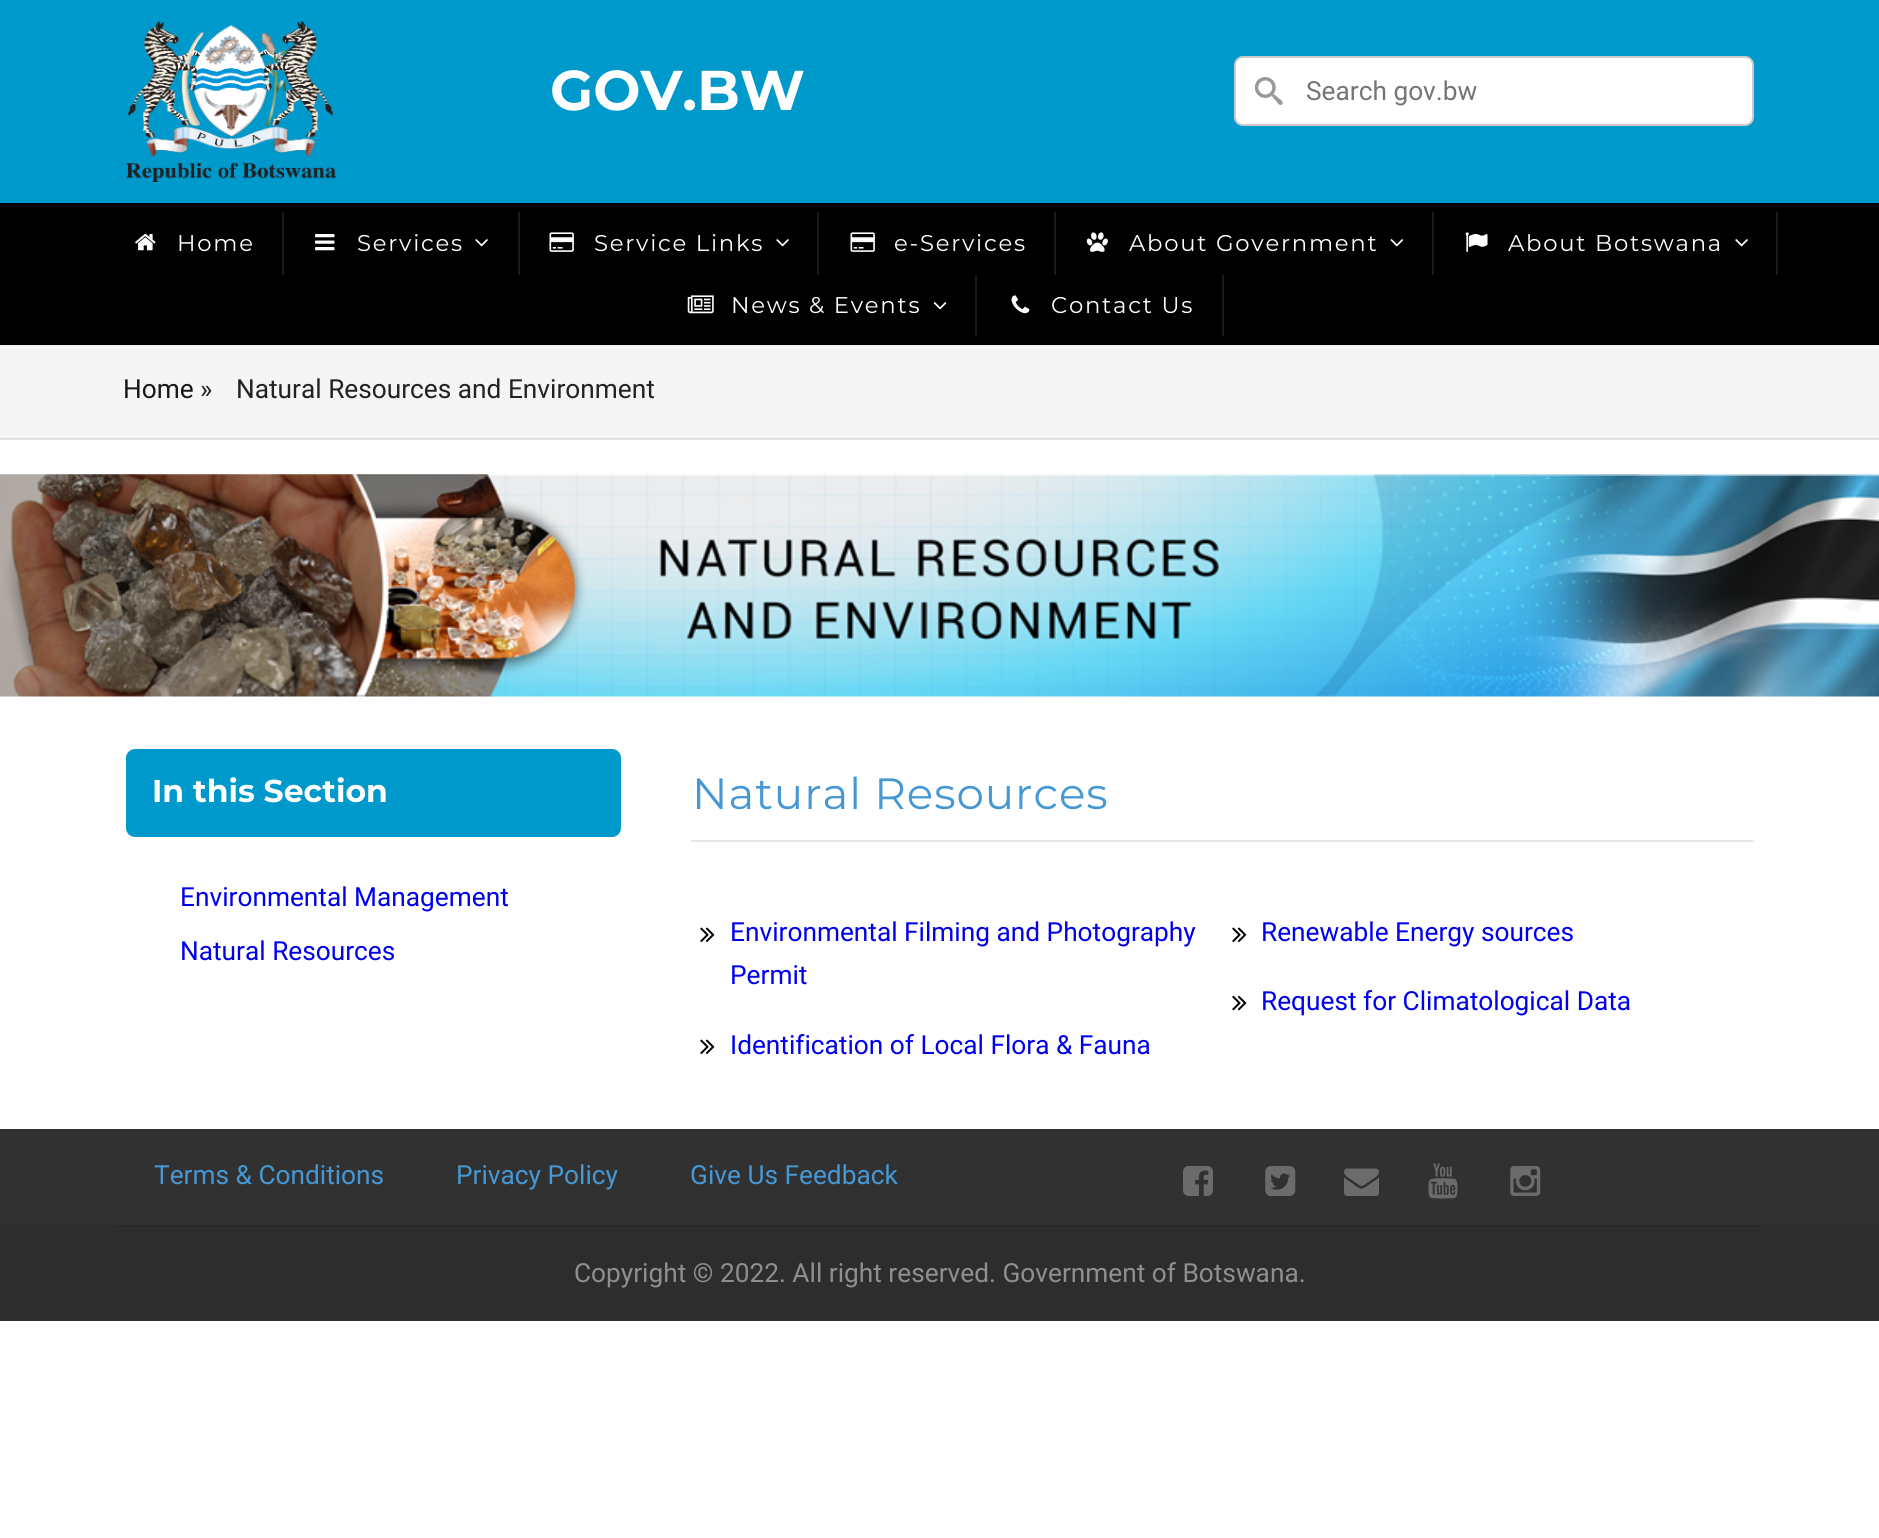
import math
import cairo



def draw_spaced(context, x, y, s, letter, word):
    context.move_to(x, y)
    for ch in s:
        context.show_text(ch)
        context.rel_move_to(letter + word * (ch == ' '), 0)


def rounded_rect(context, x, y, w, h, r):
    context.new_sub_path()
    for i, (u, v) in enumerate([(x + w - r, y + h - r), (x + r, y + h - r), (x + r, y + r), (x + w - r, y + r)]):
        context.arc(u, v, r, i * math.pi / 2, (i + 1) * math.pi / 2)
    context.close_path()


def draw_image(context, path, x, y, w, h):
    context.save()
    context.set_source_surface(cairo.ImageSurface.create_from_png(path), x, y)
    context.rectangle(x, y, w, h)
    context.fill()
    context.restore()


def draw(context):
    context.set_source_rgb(1, 1, 1)
    context.paint()
    context.set_source_rgb(230 / 255, 230 / 255, 230 / 255)
    context.rectangle(0, 439, 1879, 1)
    context.fill()
    context.set_source_rgb(0, 153 / 255, 204 / 255)
    context.rectangle(0, 0, 1879, 203)
    context.fill()
    draw_image(context, "images/1.png", 126, 21, 210, 161)
    context.set_source_rgb(1, 1, 1)
    rounded_rect(context, 1235, 57, 518, 68, 8)
    context.fill_preserve()
    context.set_source_rgb(204 / 255, 204 / 255, 204 / 255)
    context.stroke()
    draw_image(context, "images/2.png", 1255, 77, 28, 28)
    context.set_source_rgb(0, 0, 0)
    context.rectangle(0, 203, 1879, 142)
    context.fill()
    context.set_source_rgb(26 / 255, 26 / 255, 26 / 255)
    context.rectangle(282, 212, 2, 63)
    context.fill()
    draw_image(context, "images/3.png", 135, 234, 21, 17)
    context.rectangle(518, 212, 2, 63)
    context.fill()
    draw_image(context, "images/4.png", 315, 234, 20, 17)
    draw_image(context, "images/5.png", 475, 239, 13, 8)
    context.rectangle(817, 212, 2, 63)
    context.fill()
    draw_image(context, "images/6.png", 549, 232, 25, 20)
    draw_image(context, "images/5.png", 776, 239, 13, 8)
    context.rectangle(1054, 212, 2, 63)
    context.fill()
    draw_image(context, "images/6.png", 850, 232, 25, 20)
    context.rectangle(1432, 212, 2, 63)
    context.fill()
    draw_image(context, "images/7.png", 1086, 232, 22, 20)
    draw_image(context, "images/8.png", 1390, 239, 14, 8)
    context.rectangle(1776, 212, 2, 63)
    context.fill()
    draw_image(context, "images/9.png", 1465, 232, 23, 20)
    draw_image(context, "images/5.png", 1735, 239, 13, 8)
    context.rectangle(975, 275, 2, 61)
    context.fill()
    draw_image(context, "images/10.png", 687, 295, 27, 19)
    draw_image(context, "images/11.png", 933, 302, 14, 8)
    context.rectangle(1222, 275, 2, 61)
    context.fill()
    draw_image(context, "images/12.png", 1011, 295, 19, 19)
    context.set_source_rgb(245 / 255, 245 / 255, 245 / 255)
    context.rectangle(0, 345, 1879, 93)
    context.fill()
    context.set_source_rgb(221 / 255, 221 / 255, 221 / 255)
    context.rectangle(0, 438, 1879, 1)
    context.fill()
    draw_image(context, "images/13.png", 0, 474, 1879, 223)
    context.set_source_rgb(0, 153 / 255, 204 / 255)
    rounded_rect(context, 126, 749, 495, 88, 9)
    context.fill()
    context.set_source_rgb(230 / 255, 230 / 255, 230 / 255)
    context.rectangle(691, 840, 1063, 2)
    context.fill()
    draw_image(context, "images/14.png", 700, 927, 15, 16)
    draw_image(context, "images/14.png", 700, 1039, 15, 16)
    draw_image(context, "images/14.png", 1232, 927, 15, 16)
    draw_image(context, "images/15.png", 1232, 995, 15, 16)
    context.set_source_rgb(49 / 255, 49 / 255, 49 / 255)
    context.rectangle(0, 1129, 1879, 96)
    context.fill()
    draw_image(context, "images/16.png", 1183, 1166, 30, 30)
    draw_image(context, "images/17.png", 1265, 1166, 31, 30)
    draw_image(context, "images/18.png", 1344, 1168, 35, 28)
    draw_image(context, "images/19.png", 1428, 1163, 30, 36)
    draw_image(context, "images/20.png", 1510, 1166, 31, 30)
    context.set_source_rgb(45 / 255, 45 / 255, 45 / 255)
    context.rectangle(0, 1225, 1879, 96)
    context.fill()
    context.set_source_rgb(41 / 255, 41 / 255, 41 / 255)
    context.rectangle(117, 1225, 1645, 2)
    context.fill()
    context.select_font_face("Montserrat", cairo.FontSlant.NORMAL, cairo.FontWeight.BOLD)
    context.set_font_size(56)
    context.set_source_rgb(1, 1, 1)
    context.move_to(550, 110)
    context.show_text("GOV.BW")
    context.select_font_face("Roboto")
    context.set_font_size(26.25)
    context.set_source_rgb(117 / 255, 117 / 255, 117 / 255)
    context.move_to(1306, 100)
    context.show_text("Search gov.bw")
    context.select_font_face("Montserrat")
    context.set_font_size(22.75)
    context.set_source_rgb(1, 1, 1)
    draw_spaced(context, 177, 251, "Home", 1.75, 0)
    draw_spaced(context, 357, 251, "Services", 1.75, 0)
    draw_spaced(context, 594, 251, "Service Links", 1.75, 0)
    draw_spaced(context, 894, 251, "e-Services", 1.75, 0)
    draw_spaced(context, 1129, 251, "About Government", 1.75, 0)
    draw_spaced(context, 1508, 251, "About Botswana", 1.75, 0)
    draw_spaced(context, 731, 313, "News & Events", 1.75, 0)
    draw_spaced(context, 1051, 313, "Contact Us", 1.75, 0)
    context.select_font_face("Roboto")
    context.set_font_size(26.25)
    context.set_source_rgb(24 / 255, 24 / 255, 24 / 255)
    context.move_to(123, 398)
    context.show_text("Home")
    context.set_source_rgb(34 / 255, 34 / 255, 34 / 255)
    context.move_to(200, 398)
    context.show_text("»")
    context.move_to(236, 398)
    context.show_text("Natural Resources and Environment")
    context.select_font_face("Montserrat", cairo.FontSlant.NORMAL, cairo.FontWeight.BOLD)
    context.set_font_size(31.5)
    context.set_source_rgb(1, 1, 1)
    context.move_to(152, 802)
    context.show_text("In this Section")
    context.select_font_face("Roboto")
    context.set_font_size(26.25)
    context.set_source_rgb(0, 0, 238 / 255)
    context.move_to(180, 906)
    context.show_text("Environmental Management")
    context.move_to(180, 960)
    context.show_text("Natural Resources")
    context.select_font_face("Montserrat")
    context.set_font_size(43.75)
    context.set_source_rgb(70 / 255, 152 / 255, 213 / 255)
    draw_spaced(context, 692, 809, "Natural Resources", 0.9, 0)
    context.select_font_face("Roboto")
    context.set_font_size(26.25)
    context.set_source_rgb(0, 0, 238 / 255)
    context.move_to(730, 941)
    context.show_text("Environmental Filming and Photography")
    context.move_to(730, 984)
    context.show_text("Permit")
    context.move_to(730, 1054)
    context.show_text("Identification of Local Flora & Fauna")
    context.move_to(1261, 941)
    context.show_text("Renewable Energy sources")
    context.move_to(1261, 1010)
    context.show_text("Request for Climatological Data")
    context.set_source_rgb(70 / 255, 152 / 255, 213 / 255)
    context.move_to(154, 1184)
    context.show_text("Terms & Conditions")
    context.move_to(456, 1184)
    context.show_text("Privacy Policy")
    context.move_to(690, 1184)
    context.show_text("Give Us Feedback")
    context.set_source_rgb(143 / 255, 143 / 255, 143 / 255)
    context.move_to(574, 1282)
    context.show_text("Copyright © 2022. All right reserved. Government of Botswana.")


surface = cairo.ImageSurface(cairo.Format.RGB24, 1879, 1538)
context = cairo.Context(surface)
options = cairo.FontOptions()
options.set_hint_metrics(cairo.HintMetrics.OFF)
options.set_hint_style(cairo.HintStyle.NONE)
context.set_font_options(options)
context.set_miter_limit(4)
draw(context)
surface.write_to_png("out.png")
